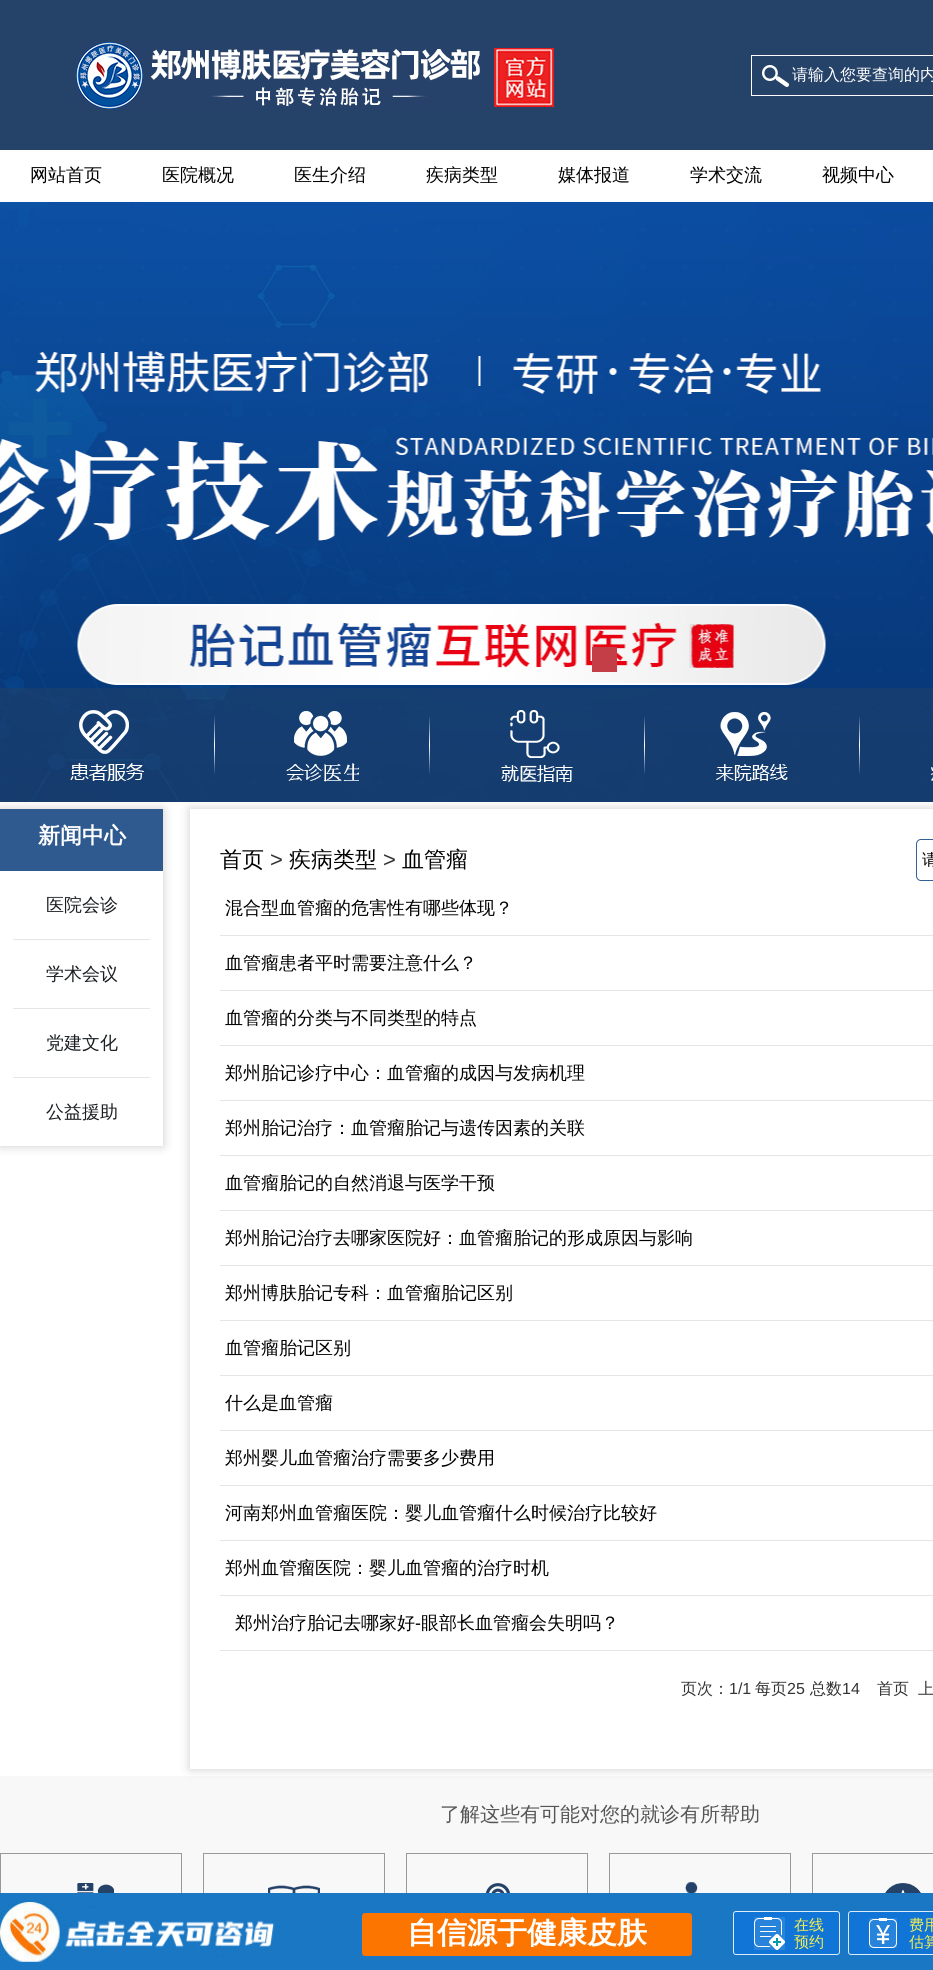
import math
import cairo



def rounded_rect(context, x, y, w, h, r):
    context.new_sub_path()
    for i, (u, v) in enumerate([(x + w - r, y + h - r), (x + r, y + h - r), (x + r, y + r), (x + w - r, y + r)]):
        context.arc(u, v, r, i * math.pi / 2, (i + 1) * math.pi / 2)
    context.close_path()


def draw_shadow(context, x, y, w, h, r, blur, alpha):
    context.push_group_with_content(cairo.Content.ALPHA)
    context.set_operator(cairo.Operator.SOURCE)
    for i in range(15, -16, -2):
        e = blur * i / 6
        if min(w, h) + 2 * e > 0:
            context.set_source_rgba(0, 0, 0, alpha * math.erfc((i - 1) / 8.5) / 2)
            rounded_rect(context, x - e, y - e, w + 2 * e, h + 2 * e, max(0, min(r + e + blur * .6, min(w, h) / 2 + e)))
            context.fill()
    context.mask(context.pop_group())


def draw_image(context, path, x, y, w, h):
    context.save()
    context.set_source_surface(cairo.ImageSurface.create_from_png(path), x, y)
    context.rectangle(x, y, w, h)
    context.fill()
    context.restore()


def draw(context):
    context.set_source_rgb(1, 1, 1)
    context.paint()
    context.set_source_rgb(37 / 255, 66 / 255, 105 / 255)
    context.rectangle(0, 0, 933, 150)
    context.fill()
    draw_image(context, "images/1.png", 75, 41, 479, 69)
    draw_image(context, "images/2.png", 762, 65, 27, 22)
    context.rectangle(751.5, 55.5, 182, 40)
    context.set_source_rgb(1, 1, 1)
    context.set_line_width(1)
    context.stroke()
    context.save()
    context.set_fill_rule(cairo.FillRule.EVEN_ODD)
    context.new_path()
    context.move_to(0, 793)
    context.line_to(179, 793)
    context.line_to(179, 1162)
    context.line_to(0, 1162)
    context.close_path()
    context.move_to(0, 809)
    context.line_to(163, 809)
    context.line_to(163, 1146)
    context.line_to(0, 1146)
    context.close_path()
    context.clip()
    context.set_source_rgb(204 / 255, 204 / 255, 204 / 255)
    draw_shadow(context, 0, 809, 163, 337, 0, 5, 1)
    context.restore()
    context.set_source_rgb(248 / 255, 248 / 255, 248 / 255)
    context.rectangle(0, 1776, 933, 117)
    context.fill()
    context.save()
    context.set_fill_rule(cairo.FillRule.EVEN_ODD)
    context.new_path()
    context.move_to(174, 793)
    context.line_to(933, 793)
    context.line_to(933, 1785)
    context.line_to(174, 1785)
    context.close_path()
    context.move_to(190, 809)
    context.line_to(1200, 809)
    context.line_to(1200, 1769)
    context.line_to(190, 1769)
    context.close_path()
    context.clip()
    context.set_source_rgb(204 / 255, 204 / 255, 204 / 255)
    draw_shadow(context, 190, 809, 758, 960, 0, 5, 1)
    context.restore()
    draw_image(context, "images/3.png", 0, 202, 933, 600)
    context.set_source_rgb(195 / 255, 62 / 255, 71 / 255)
    context.rectangle(592, 647, 25, 25)
    context.fill()
    context.set_source_rgba(37 / 255, 66 / 255, 105 / 255, 0.5)
    context.rectangle(0, 688, 933, 114)
    context.fill()
    draw_image(context, "images/4.png", 70, 710, 74, 71)
    gradient = cairo.LinearGradient(215, 715, 215, 775)
    gradient.add_color_stop_rgba(0, 22 / 255, 61 / 255, 113 / 255, 1)
    gradient.add_color_stop_rgba(0.5, 1, 1, 1, 1)
    gradient.add_color_stop_rgba(1, 22 / 255, 61 / 255, 113 / 255, 1)
    context.set_source(gradient)
    context.rectangle(214, 715, 1, 60)
    context.fill()
    draw_image(context, "images/5.png", 286, 711, 73, 71)
    gradient = cairo.LinearGradient(430, 715, 430, 775)
    gradient.add_color_stop_rgba(0, 22 / 255, 61 / 255, 113 / 255, 1)
    gradient.add_color_stop_rgba(0.5, 1, 1, 1, 1)
    gradient.add_color_stop_rgba(1, 22 / 255, 61 / 255, 113 / 255, 1)
    context.set_source(gradient)
    context.rectangle(429, 715, 1, 60)
    context.fill()
    draw_image(context, "images/6.png", 501, 710, 72, 72)
    gradient = cairo.LinearGradient(645, 715, 645, 775)
    gradient.add_color_stop_rgba(0, 22 / 255, 61 / 255, 113 / 255, 1)
    gradient.add_color_stop_rgba(0.5, 1, 1, 1, 1)
    gradient.add_color_stop_rgba(1, 22 / 255, 61 / 255, 113 / 255, 1)
    context.set_source(gradient)
    context.rectangle(644, 715, 1, 60)
    context.fill()
    draw_image(context, "images/7.png", 716, 712, 72, 69)
    gradient = cairo.LinearGradient(860, 715, 860, 775)
    gradient.add_color_stop_rgba(0, 1, 1, 1, 0)
    gradient.add_color_stop_rgba(0.5, 1, 1, 1, 1)
    gradient.add_color_stop_rgba(1, 1, 1, 1, 0)
    context.set_source(gradient)
    context.rectangle(859, 715, 1, 60)
    context.fill()
    draw_image(context, "images/8.png", 931, 767, 2, 14)
    context.set_source_rgb(47 / 255, 90 / 255, 144 / 255)
    context.rectangle(0, 809, 163, 62)
    context.fill()
    context.set_source_rgb(230 / 255, 230 / 255, 230 / 255)
    context.rectangle(13, 939, 137, 1)
    context.fill()
    context.rectangle(13, 1008, 137, 1)
    context.fill()
    context.rectangle(13, 1077, 137, 1)
    context.fill()
    context.new_path()
    context.move_to(921, 839.5)
    context.line_to(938.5, 839.5)
    context.line_to(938.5, 880.5)
    context.line_to(921, 880.5)
    context.curve_to(918.5, 880.5, 916.5, 878.5, 916.5, 876)
    context.line_to(916.5, 844)
    context.curve_to(916.5, 841.5, 918.5, 839.5, 921, 839.5)
    context.close_path()
    context.set_source_rgb(50 / 255, 96 / 255, 154 / 255)
    context.stroke()
    context.set_source_rgb(229 / 255, 229 / 255, 229 / 255)
    context.rectangle(220, 935, 713, 1)
    context.fill()
    context.rectangle(220, 990, 713, 1)
    context.fill()
    context.rectangle(220, 1045, 713, 1)
    context.fill()
    context.rectangle(220, 1100, 713, 1)
    context.fill()
    context.rectangle(220, 1155, 713, 1)
    context.fill()
    context.rectangle(220, 1210, 713, 1)
    context.fill()
    context.rectangle(220, 1265, 713, 1)
    context.fill()
    context.rectangle(220, 1320, 713, 1)
    context.fill()
    context.rectangle(220, 1375, 713, 1)
    context.fill()
    context.rectangle(220, 1430, 713, 1)
    context.fill()
    context.rectangle(220, 1485, 713, 1)
    context.fill()
    context.rectangle(220, 1540, 713, 1)
    context.fill()
    context.rectangle(220, 1595, 713, 1)
    context.fill()
    context.rectangle(220, 1650, 713, 1)
    context.fill()
    context.rectangle(0.5, 1853.5, 181, 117)
    context.set_source_rgb(153 / 255, 153 / 255, 153 / 255)
    context.stroke()
    draw_image(context, "images/9.png", 77, 1883, 37, 10)
    context.rectangle(203.5, 1853.5, 181, 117)
    context.stroke()
    draw_image(context, "images/10.png", 268, 1885, 52, 8)
    context.rectangle(406.5, 1853.5, 181, 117)
    context.stroke()
    draw_image(context, "images/11.png", 485, 1883, 26, 10)
    context.rectangle(609.5, 1853.5, 181, 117)
    context.stroke()
    draw_image(context, "images/12.png", 685, 1882, 13, 11)
    context.rectangle(812.5, 1853.5, 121, 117)
    context.stroke()
    draw_image(context, "images/13.png", 885, 1883, 36, 10)
    context.set_source_rgb(26 / 255, 119 / 255, 196 / 255)
    context.rectangle(0, 1893, 933, 77)
    context.fill()
    draw_image(context, "images/14.png", 0, 1902, 285, 60)
    context.set_source_rgb(251 / 255, 117 / 255, 0)
    rounded_rect(context, 362, 1913, 330, 43, 3)
    context.fill()
    context.set_source_rgb(16 / 255, 117 / 255, 214 / 255)
    rounded_rect(context, 733, 1911, 107, 44, 3)
    context.fill()
    draw_image(context, "images/15.png", 754, 1917, 31, 33)
    rounded_rect(context, 733.5, 1911.5, 106, 43, 2.5)
    context.set_source_rgb(219 / 255, 235 / 255, 247 / 255)
    context.stroke()
    context.set_source_rgb(16 / 255, 117 / 255, 214 / 255)
    context.new_path()
    context.move_to(851, 1911)
    context.line_to(933, 1911)
    context.line_to(933, 1955)
    context.line_to(851, 1955)
    context.curve_to(849.5, 1955, 848, 1953.5, 848, 1952)
    context.line_to(848, 1914)
    context.curve_to(848, 1912.5, 849.5, 1911, 851, 1911)
    context.close_path()
    context.fill()
    draw_image(context, "images/16.png", 869, 1918, 28, 30)
    rounded_rect(context, 848.5, 1911.5, 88, 43, 2.5)
    context.set_source_rgb(219 / 255, 235 / 255, 247 / 255)
    context.stroke()
    context.select_font_face("WenQuanYi Zen Hei Medium")
    context.set_font_size(16)
    context.set_source_rgb(1, 1, 1)
    context.move_to(792, 80)
    context.show_text("请输入您要查询的内")
    context.set_font_size(18)
    context.set_source_rgb(0, 0, 0)
    context.move_to(30, 181)
    context.show_text("网站首页")
    context.move_to(162, 181)
    context.show_text("医院概况")
    context.move_to(294, 181)
    context.show_text("医生介绍")
    context.move_to(426, 181)
    context.show_text("疾病类型")
    context.move_to(558, 181)
    context.show_text("媒体报道")
    context.move_to(690, 181)
    context.show_text("学术交流")
    context.move_to(822, 181)
    context.show_text("视频中心")
    context.select_font_face("WenQuanYi Zen Hei", cairo.FontSlant.NORMAL, cairo.FontWeight.BOLD)
    context.set_font_size(22)
    context.set_source_rgb(1, 1, 1)
    context.move_to(38, 843)
    context.show_text("新闻中心")
    context.select_font_face("WenQuanYi Zen Hei Medium")
    context.set_font_size(18)
    context.set_source_rgb(26 / 255, 30 / 255, 33 / 255)
    context.move_to(46, 911)
    context.show_text("医院会诊")
    context.move_to(46, 980)
    context.show_text("学术会议")
    context.move_to(46, 1049)
    context.show_text("党建文化")
    context.move_to(46, 1118)
    context.show_text("公益援助")
    context.set_font_size(22)
    context.set_source_rgb(0, 0, 0)
    context.move_to(220, 867)
    context.show_text("首页")
    context.select_font_face("Liberation Sans")
    context.set_source_rgb(51 / 255, 51 / 255, 51 / 255)
    context.move_to(270, 867)
    context.show_text(">")
    context.select_font_face("WenQuanYi Zen Hei Medium")
    context.set_source_rgb(0, 0, 0)
    context.move_to(289, 867)
    context.show_text("疾病类型")
    context.select_font_face("Liberation Sans")
    context.set_source_rgb(51 / 255, 51 / 255, 51 / 255)
    context.move_to(383, 867)
    context.show_text(">")
    context.select_font_face("WenQuanYi Zen Hei Medium")
    context.set_source_rgb(0, 0, 0)
    context.move_to(402, 867)
    context.show_text("血管瘤")
    context.set_font_size(16)
    context.move_to(922, 865)
    context.show_text("请")
    context.set_font_size(18)
    context.move_to(225, 914)
    context.show_text("混合型血管瘤的危害性有哪些体现？")
    context.move_to(225, 969)
    context.show_text("血管瘤患者平时需要注意什么？")
    context.move_to(225, 1024)
    context.show_text("血管瘤的分类与不同类型的特点")
    context.move_to(225, 1079)
    context.show_text("郑州胎记诊疗中心：血管瘤的成因与发病机理")
    context.move_to(225, 1134)
    context.show_text("郑州胎记治疗：血管瘤胎记与遗传因素的关联")
    context.move_to(225, 1189)
    context.show_text("血管瘤胎记的自然消退与医学干预")
    context.move_to(225, 1244)
    context.show_text("郑州胎记治疗去哪家医院好：血管瘤胎记的形成原因与影响")
    context.move_to(225, 1299)
    context.show_text("郑州博肤胎记专科：血管瘤胎记区别")
    context.move_to(225, 1354)
    context.show_text("血管瘤胎记区别")
    context.move_to(225, 1409)
    context.show_text("什么是血管瘤")
    context.move_to(225, 1464)
    context.show_text("郑州婴儿血管瘤治疗需要多少费用")
    context.move_to(225, 1519)
    context.show_text("河南郑州血管瘤医院：婴儿血管瘤什么时候治疗比较好")
    context.move_to(225, 1574)
    context.show_text("郑州血管瘤医院：婴儿血管瘤的治疗时机")
    context.move_to(235, 1629)
    context.show_text("郑州治疗胎记去哪家好")
    context.select_font_face("Liberation Sans")
    context.move_to(415, 1629)
    context.show_text("-")
    context.select_font_face("WenQuanYi Zen Hei Medium")
    context.move_to(421, 1629)
    context.show_text("眼部长血管瘤会失明吗？")
    context.set_font_size(16)
    context.set_source_rgb(51 / 255, 51 / 255, 51 / 255)
    context.move_to(681, 1694)
    context.show_text("页次：")
    context.select_font_face("Liberation Sans")
    context.move_to(729, 1694)
    context.show_text("1/1")
    context.select_font_face("WenQuanYi Zen Hei Medium")
    context.move_to(755, 1694)
    context.show_text("每页")
    context.select_font_face("Liberation Sans")
    context.move_to(787, 1694)
    context.show_text("25")
    context.select_font_face("WenQuanYi Zen Hei Medium")
    context.move_to(810, 1694)
    context.show_text("总数")
    context.select_font_face("Liberation Sans")
    context.move_to(842, 1694)
    context.show_text("14")
    context.select_font_face("WenQuanYi Zen Hei Medium")
    context.move_to(877, 1694)
    context.show_text("首页")
    context.move_to(918, 1694)
    context.show_text("上")
    context.set_font_size(20)
    context.set_source_rgb(86 / 255, 86 / 255, 86 / 255)
    context.move_to(440, 1821)
    context.show_text("了解这些有可能对您的就诊有所帮助")
    context.select_font_face("WenQuanYi Zen Hei", cairo.FontSlant.NORMAL, cairo.FontWeight.BOLD)
    context.set_font_size(30)
    context.set_source_rgb(1, 1, 1)
    context.move_to(407, 1943)
    context.show_text("自信源于健康皮肤")
    context.select_font_face("WenQuanYi Zen Hei Medium")
    context.set_font_size(15)
    context.set_source_rgb(247 / 255, 238 / 255, 82 / 255)
    context.move_to(794, 1930)
    context.show_text("在线")
    context.move_to(794, 1947)
    context.show_text("预约")
    context.move_to(909, 1930)
    context.show_text("费用")
    context.move_to(909, 1947)
    context.show_text("估算")


surface = cairo.ImageSurface(cairo.Format.RGB24, 933, 1970)
context = cairo.Context(surface)
options = cairo.FontOptions()
options.set_hint_metrics(cairo.HintMetrics.OFF)
options.set_hint_style(cairo.HintStyle.NONE)
context.set_font_options(options)
context.set_miter_limit(4)
draw(context)
surface.write_to_png("out.png")
